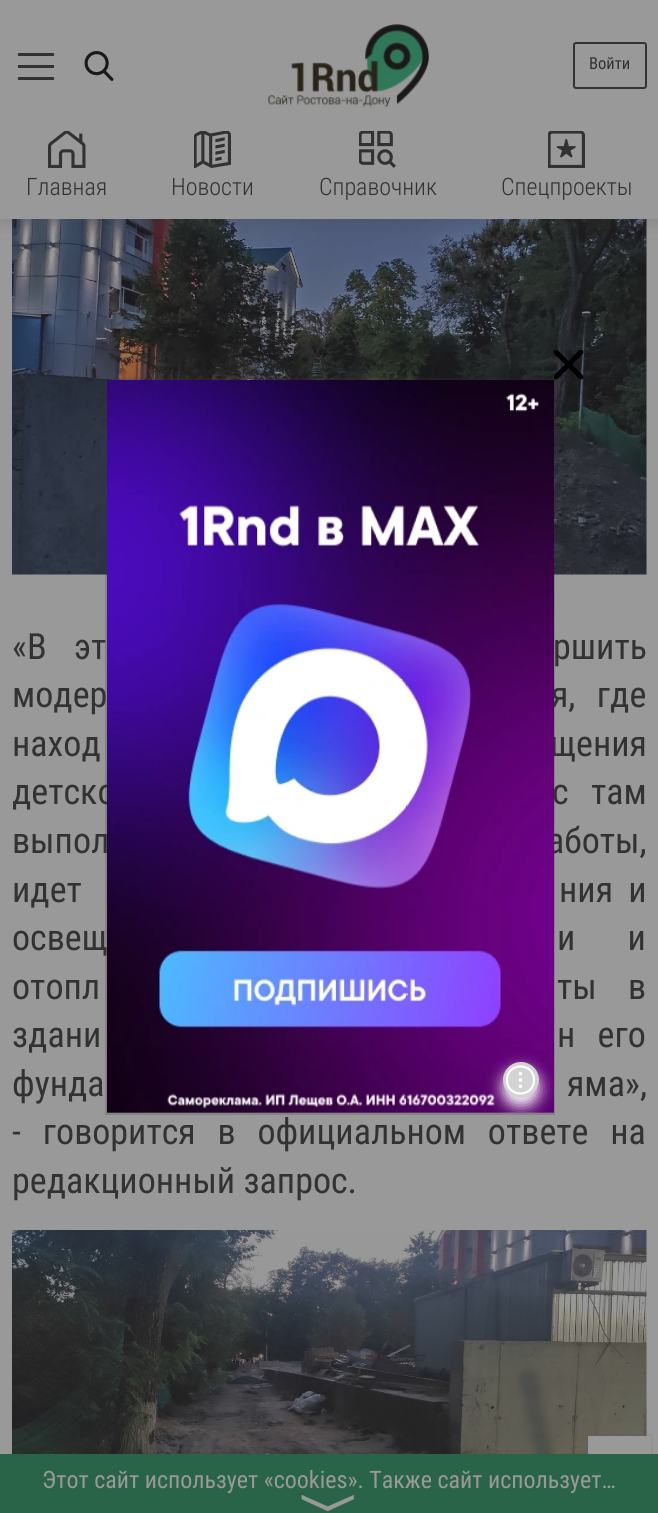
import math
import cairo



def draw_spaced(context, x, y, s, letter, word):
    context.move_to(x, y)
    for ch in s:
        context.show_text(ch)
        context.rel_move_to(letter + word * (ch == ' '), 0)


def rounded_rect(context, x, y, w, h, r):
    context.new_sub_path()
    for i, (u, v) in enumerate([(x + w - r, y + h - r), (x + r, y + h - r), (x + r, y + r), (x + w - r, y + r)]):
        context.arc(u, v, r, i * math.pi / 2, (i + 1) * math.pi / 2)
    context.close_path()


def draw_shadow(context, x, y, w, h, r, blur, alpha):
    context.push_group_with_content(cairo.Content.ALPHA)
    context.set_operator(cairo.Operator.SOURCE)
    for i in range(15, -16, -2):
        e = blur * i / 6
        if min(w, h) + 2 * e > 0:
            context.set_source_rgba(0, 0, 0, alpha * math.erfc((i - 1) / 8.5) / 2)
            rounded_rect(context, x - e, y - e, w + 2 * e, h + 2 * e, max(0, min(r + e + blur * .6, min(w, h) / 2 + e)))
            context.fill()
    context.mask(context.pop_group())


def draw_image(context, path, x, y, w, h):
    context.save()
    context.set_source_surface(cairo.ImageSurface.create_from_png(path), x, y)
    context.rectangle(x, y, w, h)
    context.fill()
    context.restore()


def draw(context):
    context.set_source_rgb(153 / 255, 153 / 255, 153 / 255)
    context.paint()
    draw_image(context, "images/9.png", 12, 219, 635, 356)
    context.set_source_rgb(64 / 255, 64 / 255, 64 / 255)
    draw_shadow(context, 0, 5, 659, 219, 0, 7.5, 0.2)
    context.set_source_rgb(153 / 255, 153 / 255, 153 / 255)
    context.rectangle(0, 0, 658, 219)
    context.fill()
    context.set_source_rgb(50 / 255, 50 / 255, 50 / 255)
    context.rectangle(18, 65, 36, 3)
    context.fill()
    context.rectangle(18, 53, 36, 3)
    context.fill()
    context.rectangle(18, 77, 36, 3)
    context.fill()
    draw_image(context, "images/1.png", 84, 51, 30, 30)
    draw_image(context, "images/2.png", 268, 24, 162, 83)
    rounded_rect(context, 574, 43, 72, 45, 2)
    context.stroke()
    draw_image(context, "images/3.png", 48, 131, 38, 37)
    draw_image(context, "images/4.png", 194, 131, 37, 37)
    draw_image(context, "images/5.png", 359, 131, 37, 37)
    draw_image(context, "images/6.png", 548, 131, 37, 37)
    draw_image(context, "images/10.png", 12, 1230, 635, 224)
    context.set_source_rgb(75 / 255, 75 / 255, 75 / 255)
    draw_shadow(context, 588, 1436, 63, 63, 0, 2, 0.25)
    context.set_source_rgb(42 / 255, 100 / 255, 72 / 255)
    context.rectangle(0, 1454, 658, 59)
    context.fill()
    context.set_source_rgb(153 / 255, 153 / 255, 153 / 255)
    context.rectangle(588, 1436, 63, 18)
    context.fill()
    context.select_font_face("Roboto Condensed")
    context.set_font_size(16.5)
    context.set_source_rgb(50 / 255, 50 / 255, 50 / 255)
    context.move_to(589, 69)
    context.show_text("Войти")
    context.select_font_face("Roboto Condensed Light")
    context.set_font_size(24)
    context.move_to(26, 195)
    context.show_text("Главная")
    context.move_to(171, 195)
    context.show_text("Новости")
    context.move_to(319, 195)
    context.show_text("Справочник")
    context.move_to(501, 195)
    context.show_text("Спецпроекты")
    context.select_font_face("Roboto Condensed")
    context.set_font_size(36)
    draw_spaced(context, 12, 659, "«В эт", 0, 19)
    draw_spaced(context, 553, 659, "ршить", 0, 19)
    draw_spaced(context, 12, 707, "модер", 0, 13)
    draw_spaced(context, 551, 707, "я, где", 0, 13)
    draw_spaced(context, 12, 756, "наход", 0, 2)
    draw_spaced(context, 550, 756, "щения", 0, 2)
    draw_spaced(context, 12, 804, "детско", 0, 14)
    draw_spaced(context, 552, 804, "с там", 0, 14)
    context.move_to(12, 853)
    context.show_text("выпол")
    context.move_to(547, 853)
    context.show_text("аботы,")
    draw_spaced(context, 12, 902, "идет", 0, 7)
    draw_spaced(context, 559, 902, "ния и", 0, 7)
    draw_spaced(context, 12, 950, "освещ", 0, 44)
    context.rectangle(106, 379, 448, 735)
    context.set_source_rgba(50 / 255, 50 / 255, 50 / 255, 0.2)
    context.stroke()
    draw_image(context, "images/8.png", 107, 380, 447, 733)
    context.save()
    context.rectangle(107, 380, 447, 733)
    context.clip()
    context.set_source_rgb(1, 1, 1)
    draw_shadow(context, 503, 1070, 36, 36, 18, 7.5, 1)
    context.restore()
    context.set_source_rgb(211 / 255, 211 / 255, 211 / 255)
    context.arc(521, 1080, 18, 0, 2 * math.pi)
    context.fill()
    context.set_source_rgb(1, 1, 1)
    context.arc(520.5, 1073.7, 1.8, 0, 2 * math.pi)
    context.fill()
    context.arc(520.5, 1086.3, 1.8, 0, 2 * math.pi)
    context.fill()
    context.arc(520.5, 1080, 1.8, 0, 2 * math.pi)
    context.fill()
    context.new_path()
    context.move_to(534, 1080)
    context.curve_to(534, 1062, 507, 1062, 507, 1080)
    context.curve_to(507, 1098, 534, 1098, 534, 1080)
    context.close_path()
    context.set_line_width(2.2)
    context.stroke()
    draw_image(context, "images/7.png", 554, 350, 30, 30)
    context.set_source_rgb(50 / 255, 50 / 255, 50 / 255)
    draw_spaced(context, 557, 950, "и и", 0, 44)
    draw_spaced(context, 12, 999, "отопл", 0, 23)
    draw_spaced(context, 557, 999, "ты в", 0, 23)
    draw_spaced(context, 12, 1047, "здани", 0, 14)
    draw_spaced(context, 557, 1047, "н его", 0, 14)
    draw_spaced(context, 12, 1096, "фунда", 0, 1)
    draw_spaced(context, 567, 1096, "яма»,", 0, 1)
    draw_spaced(context, 12, 1144, "- говорится в официальном ответе на", 0, 13.5)
    context.move_to(12, 1193)
    context.show_text("редакционный запрос.")
    context.set_font_size(24)
    context.set_source_rgb(153 / 255, 153 / 255, 153 / 255)
    context.move_to(42, 1488)
    context.show_text("Этот сайт использует «cookies». Также сайт использует…")
    context.select_font_face("FreeSans")
    context.set_font_size(60)
    context.save()
    context.translate(310, 1493)
    context.rotate(90 * math.pi / 180)
    context.move_to(0, 0)
    context.show_text("〉")
    context.restore()


surface = cairo.ImageSurface(cairo.Format.RGB24, 658, 1513)
context = cairo.Context(surface)
options = cairo.FontOptions()
options.set_hint_metrics(cairo.HintMetrics.OFF)
options.set_hint_style(cairo.HintStyle.NONE)
context.set_font_options(options)
context.set_miter_limit(4)
draw(context)
surface.write_to_png("out.png")
